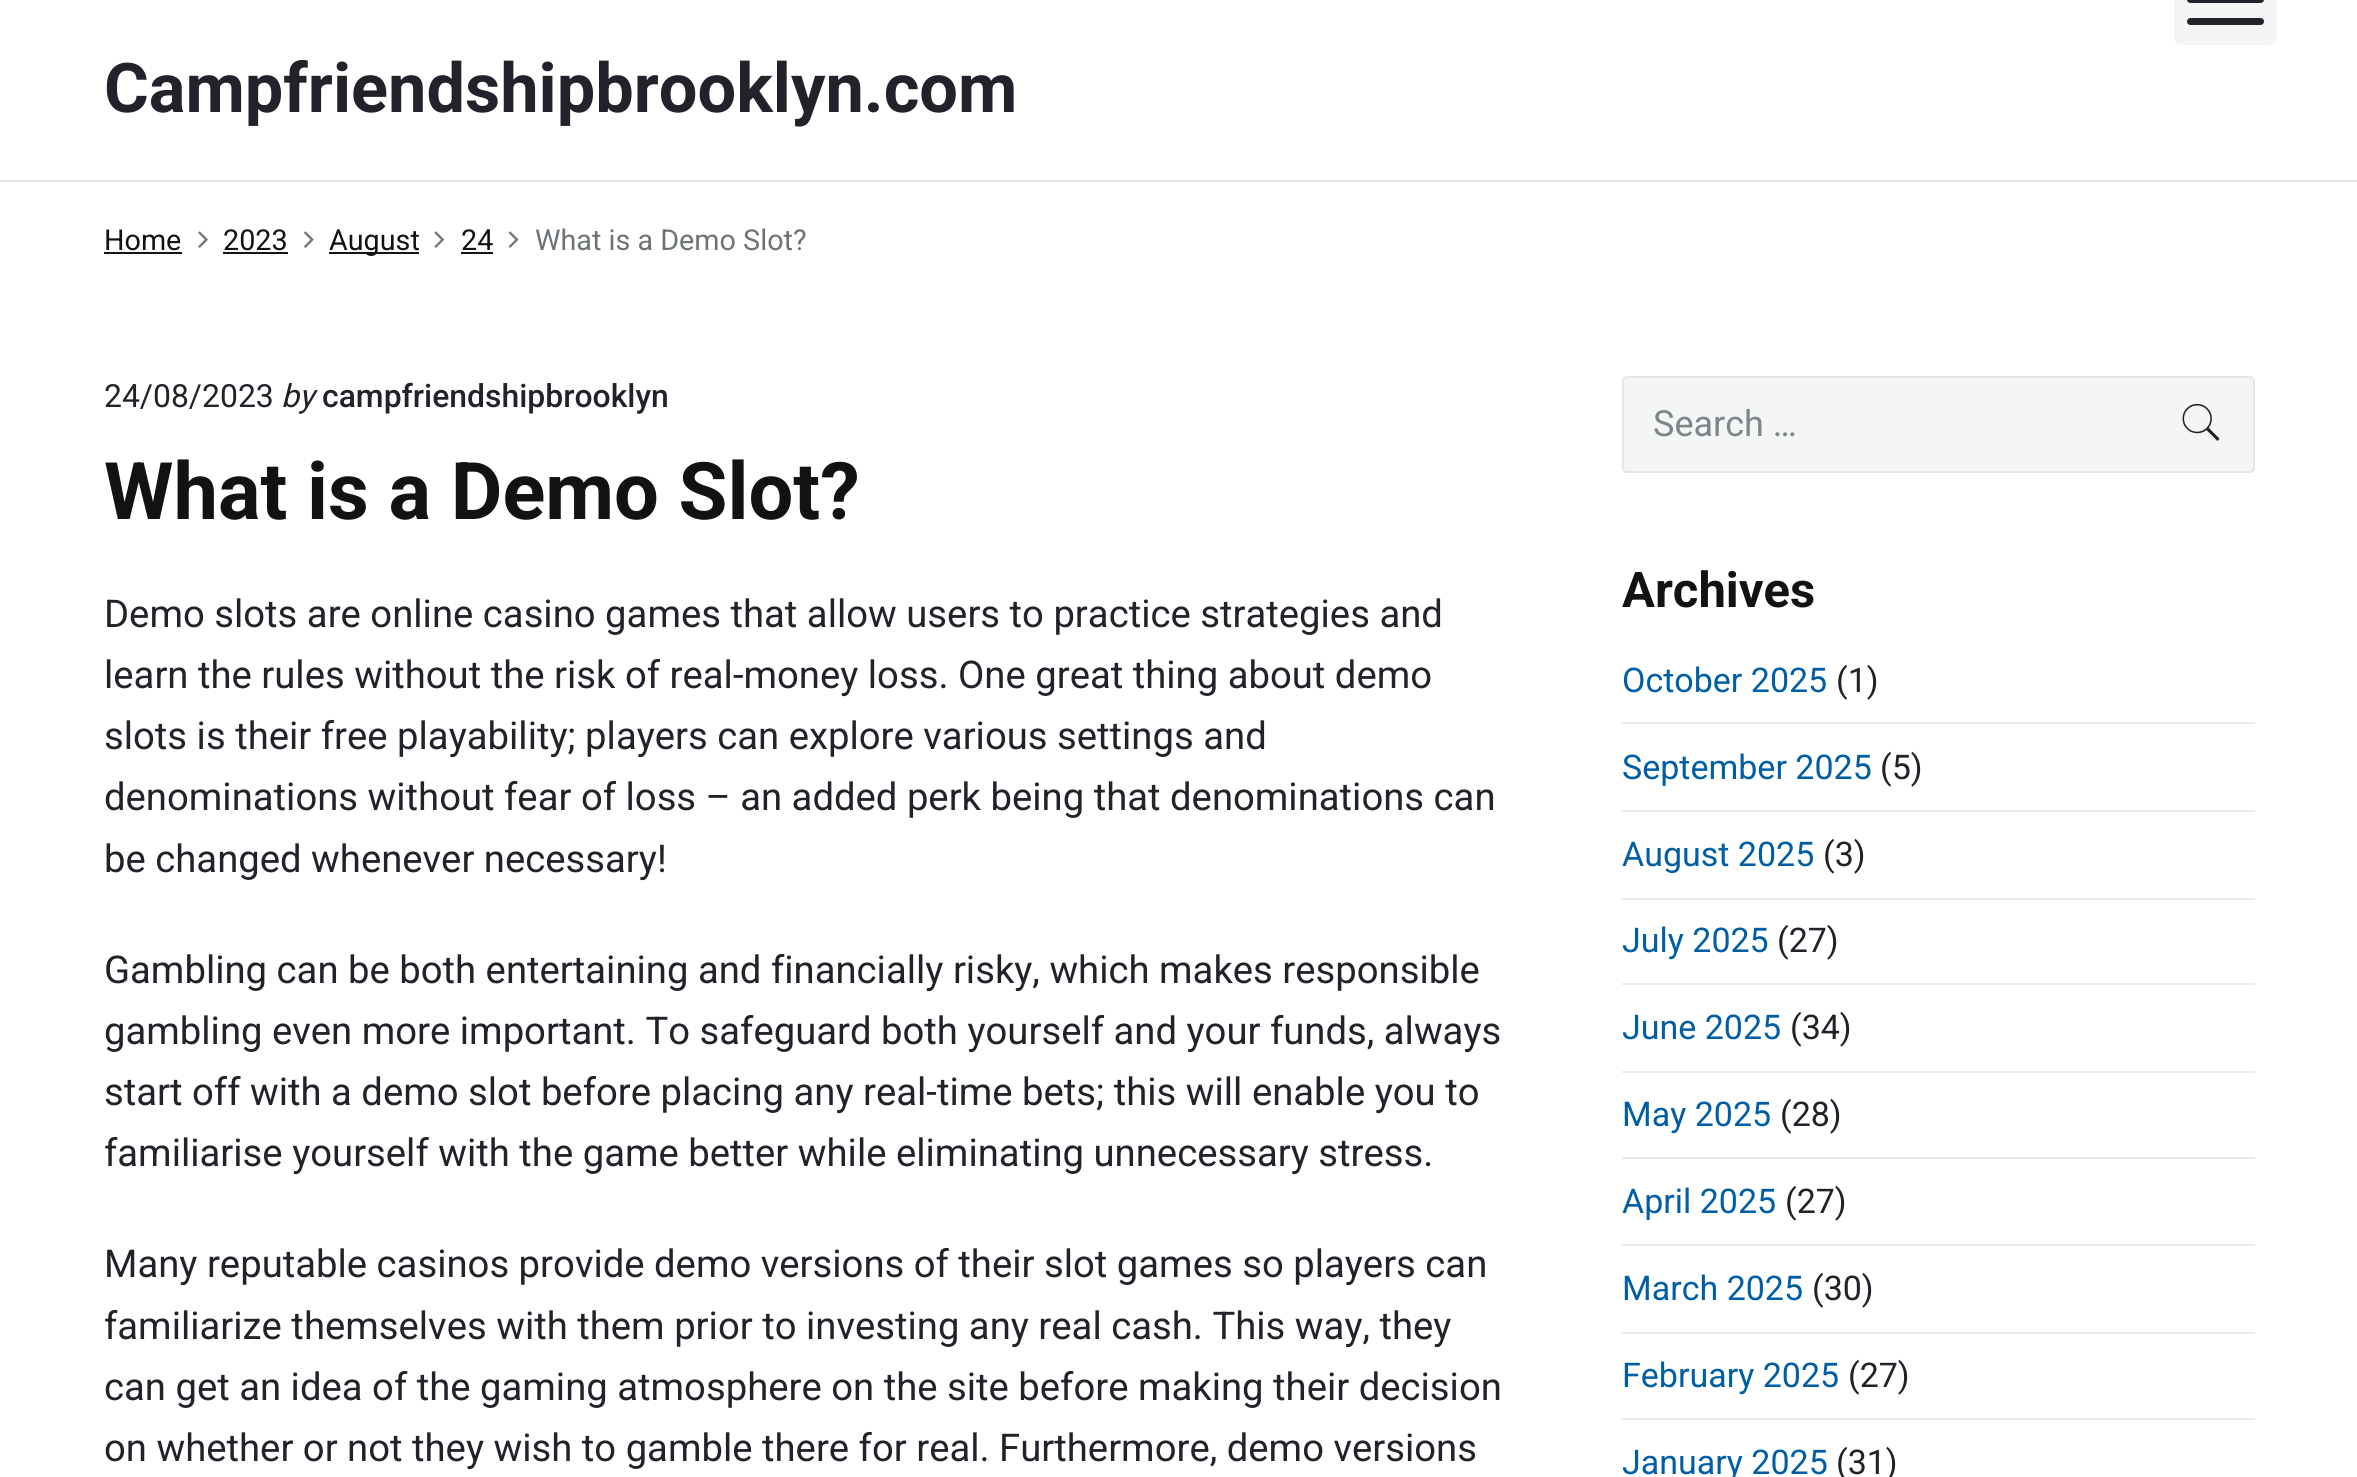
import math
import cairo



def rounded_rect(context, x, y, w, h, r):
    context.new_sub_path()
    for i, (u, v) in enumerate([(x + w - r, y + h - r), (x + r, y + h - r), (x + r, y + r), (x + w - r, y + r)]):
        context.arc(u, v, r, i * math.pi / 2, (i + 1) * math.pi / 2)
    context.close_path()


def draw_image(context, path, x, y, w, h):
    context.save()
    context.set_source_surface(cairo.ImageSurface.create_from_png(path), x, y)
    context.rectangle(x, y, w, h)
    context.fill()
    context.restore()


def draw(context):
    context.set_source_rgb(1, 1, 1)
    context.paint()
    context.set_source_rgb(244 / 255, 244 / 255, 244 / 255)
    rounded_rect(context, 2174, -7, 103, 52, 7)
    context.fill()
    context.set_source_rgb(34 / 255, 34 / 255, 42 / 255)
    rounded_rect(context, 2187, -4, 77, 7, 3.5)
    context.fill()
    rounded_rect(context, 2187, 18, 77, 7, 3.5)
    context.fill()
    context.set_source_rgb(225 / 255, 227 / 255, 228 / 255)
    context.rectangle(0, 180, 2357, 2)
    context.fill()
    context.set_source_rgb(20 / 255, 20 / 255, 20 / 255)
    context.rectangle(104, 252, 78, 2)
    context.fill()
    draw_image(context, "images/1.png", 198, 231, 10, 17)
    context.rectangle(223, 252, 65, 2)
    context.fill()
    draw_image(context, "images/2.png", 303, 231, 11, 17)
    context.rectangle(329, 252, 90, 2)
    context.fill()
    draw_image(context, "images/3.png", 434, 231, 11, 17)
    context.rectangle(461, 252, 32, 2)
    context.fill()
    draw_image(context, "images/4.png", 508, 231, 11, 17)
    context.set_source_rgb(244 / 255, 245 / 255, 245 / 255)
    rounded_rect(context, 1622, 376, 633, 97, 5)
    context.fill()
    rounded_rect(context, 1623, 377, 631, 95, 4)
    context.set_source_rgba(39 / 255, 55 / 255, 64 / 255, 0.08)
    context.stroke()
    draw_image(context, "images/5.png", 2182, 403, 38, 38)
    context.set_source_rgb(233 / 255, 235 / 255, 236 / 255)
    context.rectangle(1622, 722, 633, 2)
    context.fill()
    context.rectangle(1622, 810, 633, 2)
    context.fill()
    context.rectangle(1622, 898, 633, 2)
    context.fill()
    context.rectangle(1622, 983, 633, 2)
    context.fill()
    context.rectangle(1622, 1071, 633, 2)
    context.fill()
    context.rectangle(1622, 1157, 633, 2)
    context.fill()
    context.rectangle(1622, 1244, 633, 2)
    context.fill()
    context.rectangle(1622, 1332, 633, 2)
    context.fill()
    context.rectangle(1622, 1418, 633, 2)
    context.fill()
    context.select_font_face("Roboto", cairo.FontSlant.NORMAL, cairo.FontWeight.BOLD)
    context.set_font_size(68.5)
    context.set_source_rgb(34 / 255, 34 / 255, 42 / 255)
    context.move_to(104, 112)
    context.show_text("Campfriendshipbrooklyn.com")
    context.select_font_face("Roboto")
    context.set_font_size(28.75)
    context.set_source_rgb(18 / 255, 18 / 255, 18 / 255)
    context.move_to(104, 250)
    context.show_text("Home")
    context.move_to(223, 250)
    context.show_text("2023")
    context.move_to(329, 250)
    context.show_text("August")
    context.move_to(461, 250)
    context.show_text("24")
    context.set_source_rgb(109 / 255, 115 / 255, 119 / 255)
    context.move_to(535, 250)
    context.show_text("What is a Demo Slot?")
    context.set_font_size(31.9)
    context.set_source_rgb(34 / 255, 34 / 255, 42 / 255)
    context.move_to(104, 407)
    context.show_text("24/08/2023")
    context.select_font_face("Roboto", cairo.FontSlant.ITALIC)
    context.move_to(281, 407)
    context.show_text("by")
    context.select_font_face("Roboto Medium")
    context.move_to(322, 407)
    context.show_text("campfriendshipbrooklyn")
    context.select_font_face("Roboto", cairo.FontSlant.NORMAL, cairo.FontWeight.BOLD)
    context.set_font_size(79.4)
    context.set_source_rgb(18 / 255, 18 / 255, 18 / 255)
    context.move_to(104, 519)
    context.show_text("What is a Demo Slot?")
    context.select_font_face("Roboto")
    context.set_font_size(38.25)
    context.set_source_rgb(34 / 255, 34 / 255, 42 / 255)
    context.move_to(104, 627)
    context.show_text("Demo slots are online casino games that allow users to practice strategies and")
    context.move_to(104, 688)
    context.show_text("learn the rules without the risk of real-money loss. One great thing about demo")
    context.move_to(104, 749)
    context.show_text("slots is their free playability; players can explore various settings and")
    context.move_to(104, 810)
    context.show_text("denominations without fear of loss – an added perk being that denominations can")
    context.move_to(104, 872)
    context.show_text("be changed whenever necessary!")
    context.move_to(104, 983)
    context.show_text("Gambling can be both entertaining and financially risky, which makes responsible")
    context.move_to(104, 1044)
    context.show_text("gambling even more important. To safeguard both yourself and your funds, always")
    context.move_to(104, 1105)
    context.show_text("start off with a demo slot before placing any real-time bets; this will enable you to")
    context.move_to(104, 1166)
    context.show_text("familiarise yourself with the game better while eliminating unnecessary stress.")
    context.move_to(104, 1277)
    context.show_text("Many reputable casinos provide demo versions of their slot games so players can")
    context.move_to(104, 1339)
    context.show_text("familiarize themselves with them prior to investing any real cash. This way, they")
    context.move_to(104, 1400)
    context.show_text("can get an idea of the gaming atmosphere on the site before making their decision")
    context.move_to(104, 1461)
    context.show_text("on whether or not they wish to gamble there for real. Furthermore, demo versions")
    context.set_font_size(36)
    context.set_source_rgb(126 / 255, 132 / 255, 138 / 255)
    context.move_to(1653, 436)
    context.show_text("Search …")
    context.select_font_face("Roboto", cairo.FontSlant.NORMAL, cairo.FontWeight.BOLD)
    context.set_font_size(49)
    context.set_source_rgb(18 / 255, 18 / 255, 18 / 255)
    context.move_to(1622, 607)
    context.show_text("Archives")
    context.select_font_face("Roboto")
    context.set_font_size(34)
    context.set_source_rgb(0, 94 / 255, 165 / 255)
    context.move_to(1622, 692)
    context.show_text("October 2025")
    context.set_source_rgb(34 / 255, 34 / 255, 42 / 255)
    context.move_to(1836, 692)
    context.show_text("(1)")
    context.set_source_rgb(0, 94 / 255, 165 / 255)
    context.move_to(1622, 779)
    context.show_text("September 2025")
    context.set_source_rgb(34 / 255, 34 / 255, 42 / 255)
    context.move_to(1880, 779)
    context.show_text("(5)")
    context.set_source_rgb(0, 94 / 255, 165 / 255)
    context.move_to(1622, 866)
    context.show_text("August 2025")
    context.set_source_rgb(34 / 255, 34 / 255, 42 / 255)
    context.move_to(1823, 866)
    context.show_text("(3)")
    context.set_source_rgb(0, 94 / 255, 165 / 255)
    context.move_to(1622, 952)
    context.show_text("July 2025")
    context.set_source_rgb(34 / 255, 34 / 255, 42 / 255)
    context.move_to(1777, 952)
    context.show_text("(27)")
    context.set_source_rgb(0, 94 / 255, 165 / 255)
    context.move_to(1622, 1039)
    context.show_text("June 2025")
    context.set_source_rgb(34 / 255, 34 / 255, 42 / 255)
    context.move_to(1790, 1039)
    context.show_text("(34)")
    context.set_source_rgb(0, 94 / 255, 165 / 255)
    context.move_to(1622, 1126)
    context.show_text("May 2025")
    context.set_source_rgb(34 / 255, 34 / 255, 42 / 255)
    context.move_to(1780, 1126)
    context.show_text("(28)")
    context.set_source_rgb(0, 94 / 255, 165 / 255)
    context.move_to(1622, 1213)
    context.show_text("April 2025")
    context.set_source_rgb(34 / 255, 34 / 255, 42 / 255)
    context.move_to(1785, 1213)
    context.show_text("(27)")
    context.set_source_rgb(0, 94 / 255, 165 / 255)
    context.move_to(1622, 1300)
    context.show_text("March 2025")
    context.set_source_rgb(34 / 255, 34 / 255, 42 / 255)
    context.move_to(1812, 1300)
    context.show_text("(30)")
    context.set_source_rgb(0, 94 / 255, 165 / 255)
    context.move_to(1622, 1387)
    context.show_text("February 2025")
    context.set_source_rgb(34 / 255, 34 / 255, 42 / 255)
    context.move_to(1848, 1387)
    context.show_text("(27)")
    context.set_source_rgb(0, 94 / 255, 165 / 255)
    context.move_to(1622, 1474)
    context.show_text("January 2025")
    context.set_source_rgb(34 / 255, 34 / 255, 42 / 255)
    context.move_to(1836, 1474)
    context.show_text("(31)")


surface = cairo.ImageSurface(cairo.Format.RGB24, 2357, 1477)
context = cairo.Context(surface)
options = cairo.FontOptions()
options.set_hint_metrics(cairo.HintMetrics.OFF)
options.set_hint_style(cairo.HintStyle.NONE)
context.set_font_options(options)
context.set_miter_limit(4)
draw(context)
surface.write_to_png("out.png")
